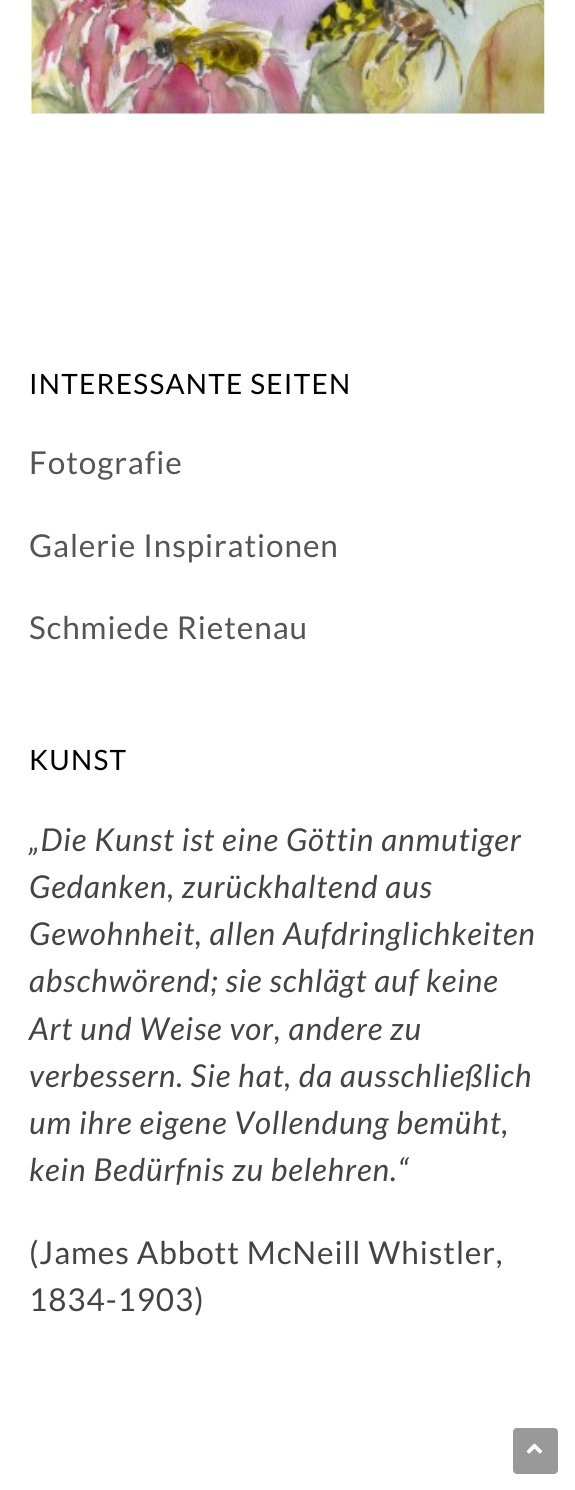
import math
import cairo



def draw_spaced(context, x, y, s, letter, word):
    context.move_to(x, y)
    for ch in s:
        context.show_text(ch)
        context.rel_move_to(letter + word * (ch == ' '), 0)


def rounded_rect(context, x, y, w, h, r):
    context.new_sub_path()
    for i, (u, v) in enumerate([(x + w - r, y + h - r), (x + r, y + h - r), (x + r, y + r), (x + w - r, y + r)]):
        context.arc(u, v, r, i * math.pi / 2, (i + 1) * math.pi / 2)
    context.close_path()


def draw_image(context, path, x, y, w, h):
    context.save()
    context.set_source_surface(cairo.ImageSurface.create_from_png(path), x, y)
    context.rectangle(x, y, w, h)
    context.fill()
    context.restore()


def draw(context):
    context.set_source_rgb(1, 1, 1)
    context.paint()
    draw_image(context, "images/1.png", 31, 0, 514, 114)
    context.set_source_rgb(153 / 255, 153 / 255, 153 / 255)
    rounded_rect(context, 513, 1428, 45, 46, 4)
    context.fill()
    draw_image(context, "images/2.png", 526, 1443, 17, 11)
    context.select_font_face("Lato")
    context.set_font_size(28)
    context.set_source_rgb(0, 0, 0)
    draw_spaced(context, 29, 394, "INTERESSANTE SEITEN", 1.25, 0)
    context.set_font_size(31.5)
    context.set_source_rgb(85 / 255, 85 / 255, 85 / 255)
    draw_spaced(context, 29, 474, "Fotografie", 0.9, 0)
    draw_spaced(context, 29, 557, "Galerie Inspirationen", 0.9, 0)
    draw_spaced(context, 29, 639, "Schmiede Rietenau", 0.9, 0)
    context.set_font_size(28)
    context.set_source_rgb(0, 0, 0)
    draw_spaced(context, 29, 770, "KUNST", 1.25, 0)
    context.select_font_face("Lato", cairo.FontSlant.ITALIC)
    context.set_font_size(31.5)
    context.set_source_rgb(68 / 255, 68 / 255, 68 / 255)
    draw_spaced(context, 29, 851, "„Die Kunst ist eine Göttin anmutiger", 0.9, 0)
    draw_spaced(context, 29, 898, "Gedanken, zurückhaltend aus", 0.9, 0)
    draw_spaced(context, 29, 945, "Gewohnheit, allen Aufdringlichkeiten", 0.9, 0)
    draw_spaced(context, 29, 992, "abschwörend; sie schlägt auf keine", 0.9, 0)
    draw_spaced(context, 29, 1040, "Art und Weise vor, andere zu", 0.9, 0)
    draw_spaced(context, 29, 1087, "verbessern. Sie hat, da ausschließlich", 0.9, 0)
    draw_spaced(context, 29, 1134, "um ihre eigene Vollendung bemüht,", 0.9, 0)
    draw_spaced(context, 29, 1181, "kein Bedürfnis zu belehren.“", 0.9, 0)
    context.select_font_face("Lato")
    draw_spaced(context, 29, 1264, "(James Abbott McNeill Whistler,", 0.9, 0)
    draw_spaced(context, 29, 1311, "1834-1903)", 0.9, 0)


surface = cairo.ImageSurface(cairo.Format.RGB24, 575, 1490)
context = cairo.Context(surface)
options = cairo.FontOptions()
options.set_hint_metrics(cairo.HintMetrics.OFF)
options.set_hint_style(cairo.HintStyle.NONE)
context.set_font_options(options)
context.set_miter_limit(4)
draw(context)
surface.write_to_png("out.png")
